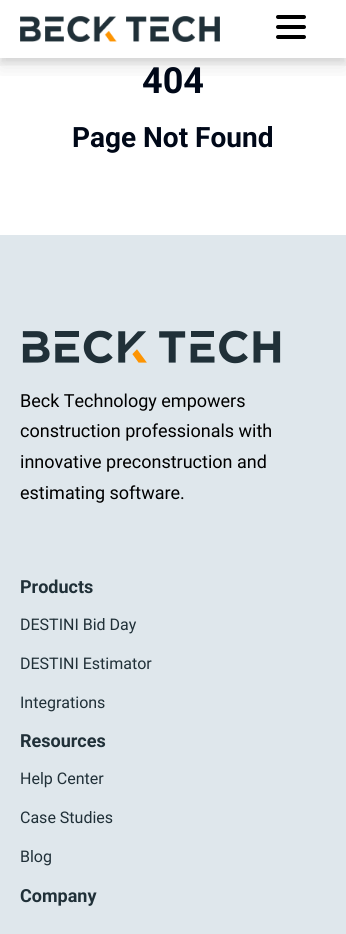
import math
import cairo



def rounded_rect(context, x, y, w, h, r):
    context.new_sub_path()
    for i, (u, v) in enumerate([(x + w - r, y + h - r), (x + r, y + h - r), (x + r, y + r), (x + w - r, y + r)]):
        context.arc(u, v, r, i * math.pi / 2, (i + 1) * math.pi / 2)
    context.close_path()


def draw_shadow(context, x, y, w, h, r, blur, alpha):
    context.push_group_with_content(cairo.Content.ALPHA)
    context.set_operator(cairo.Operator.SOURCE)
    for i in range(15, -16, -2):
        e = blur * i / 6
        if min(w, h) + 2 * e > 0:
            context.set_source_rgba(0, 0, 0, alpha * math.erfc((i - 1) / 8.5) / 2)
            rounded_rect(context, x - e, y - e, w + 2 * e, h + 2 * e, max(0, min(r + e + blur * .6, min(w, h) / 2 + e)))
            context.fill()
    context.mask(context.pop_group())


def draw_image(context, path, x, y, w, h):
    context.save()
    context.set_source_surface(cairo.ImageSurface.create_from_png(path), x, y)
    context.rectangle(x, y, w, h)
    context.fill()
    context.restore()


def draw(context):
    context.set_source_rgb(1, 1, 1)
    context.paint()
    context.save()
    context.rectangle(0, 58, 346, 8)
    context.clip()
    context.set_source_rgb(0, 0, 0)
    draw_shadow(context, 0, 5, 346, 58, 0, 4, 0.1)
    context.restore()
    context.save()
    context.rectangle(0, 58, 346, 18)
    context.clip()
    context.set_source_rgb(0, 0, 0)
    draw_shadow(context, 0, 9, 346, 58, 0, 11.5, 0.09)
    context.restore()
    draw_image(context, "images/1.png", 20, 16, 200, 26)
    context.set_source_rgb(0, 0, 0)
    rounded_rect(context, 276, 25, 30, 4, 2)
    context.fill()
    rounded_rect(context, 276, 15, 30, 4, 2)
    context.fill()
    rounded_rect(context, 276, 35, 30, 4, 2)
    context.fill()
    context.set_source_rgb(223 / 255, 231 / 255, 236 / 255)
    context.rectangle(0, 235, 346, 699)
    context.fill()
    draw_image(context, "images/2.png", 22, 330, 259, 34)
    context.select_font_face("Roboto", cairo.FontSlant.NORMAL, cairo.FontWeight.BOLD)
    context.set_font_size(36)
    context.set_source_rgb(0, 8 / 255, 24 / 255)
    context.move_to(142, 93)
    context.show_text("404")
    context.set_font_size(28)
    context.move_to(72, 147)
    context.show_text("Page Not Found")
    context.select_font_face("Roboto")
    context.set_font_size(18)
    context.set_source_rgb(0, 0, 0)
    context.move_to(20, 407)
    context.show_text("Beck Technology empowers")
    context.move_to(20, 437)
    context.show_text("construction professionals with")
    context.move_to(20, 468)
    context.show_text("innovative preconstruction and")
    context.move_to(20, 499)
    context.show_text("estimating software.")
    context.select_font_face("Roboto", cairo.FontSlant.NORMAL, cairo.FontWeight.BOLD)
    context.set_source_rgb(32 / 255, 48 / 255, 56 / 255)
    context.move_to(20, 593)
    context.show_text("Products")
    context.select_font_face("Roboto")
    context.set_font_size(16)
    context.move_to(20, 630)
    context.show_text("DESTINI Bid Day")
    context.move_to(20, 669)
    context.show_text("DESTINI Estimator")
    context.move_to(20, 708)
    context.show_text("Integrations")
    context.select_font_face("Roboto", cairo.FontSlant.NORMAL, cairo.FontWeight.BOLD)
    context.set_font_size(18)
    context.move_to(20, 747)
    context.show_text("Resources")
    context.select_font_face("Roboto")
    context.set_font_size(16)
    context.move_to(20, 784)
    context.show_text("Help Center")
    context.move_to(20, 823)
    context.show_text("Case Studies")
    context.move_to(20, 862)
    context.show_text("Blog")
    context.select_font_face("Roboto", cairo.FontSlant.NORMAL, cairo.FontWeight.BOLD)
    context.set_font_size(18)
    context.move_to(20, 902)
    context.show_text("Company")


surface = cairo.ImageSurface(cairo.Format.RGB24, 346, 934)
context = cairo.Context(surface)
options = cairo.FontOptions()
options.set_hint_metrics(cairo.HintMetrics.OFF)
options.set_hint_style(cairo.HintStyle.NONE)
context.set_font_options(options)
context.set_miter_limit(4)
draw(context)
surface.write_to_png("out.png")
